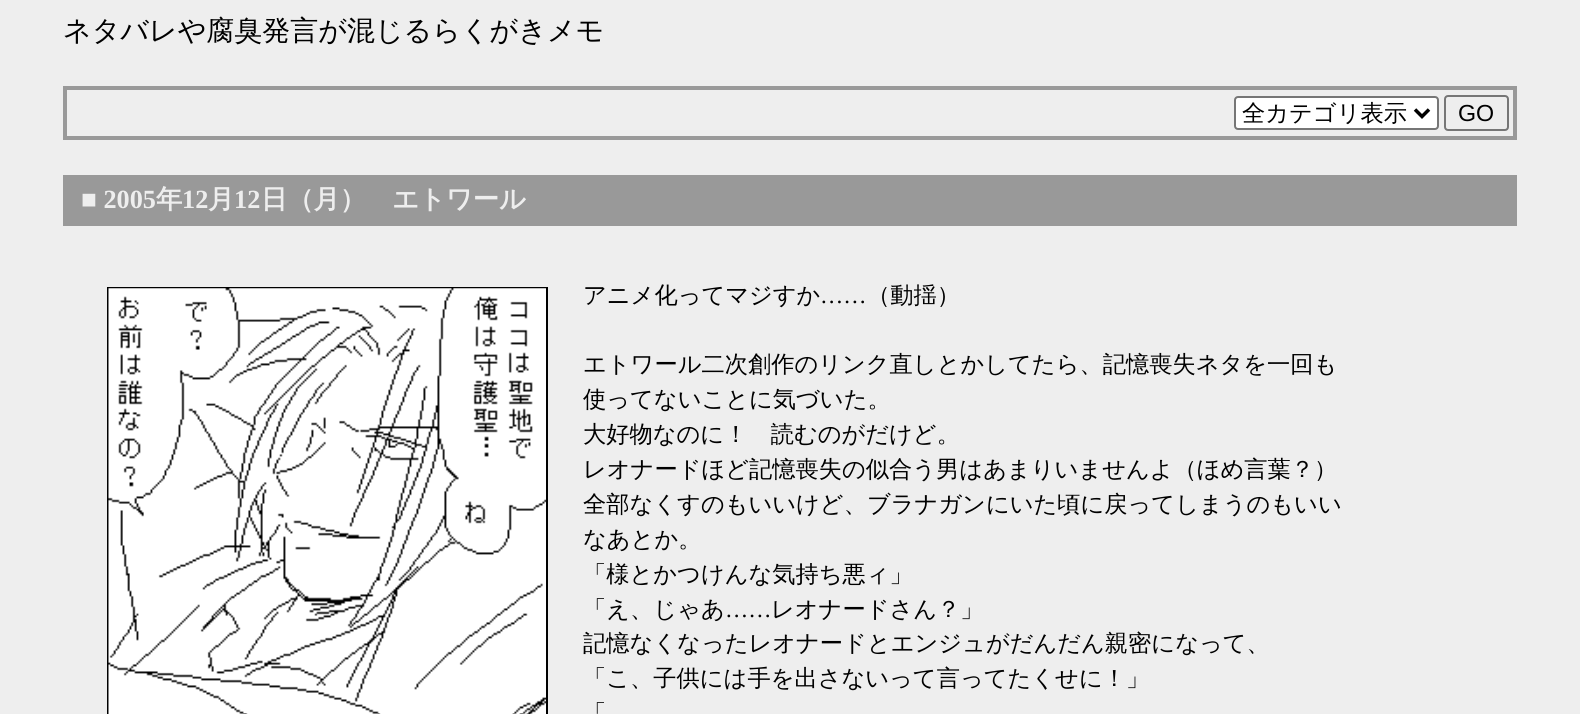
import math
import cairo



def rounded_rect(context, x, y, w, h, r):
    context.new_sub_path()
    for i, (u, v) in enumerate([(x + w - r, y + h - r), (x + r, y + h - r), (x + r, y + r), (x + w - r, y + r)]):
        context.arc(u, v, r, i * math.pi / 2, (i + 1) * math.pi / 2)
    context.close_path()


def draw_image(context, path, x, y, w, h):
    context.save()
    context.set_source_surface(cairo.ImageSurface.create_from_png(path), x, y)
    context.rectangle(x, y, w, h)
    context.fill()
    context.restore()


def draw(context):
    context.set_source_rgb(238 / 255, 238 / 255, 238 / 255)
    context.paint()
    context.rectangle(65, 88, 1450, 50)
    context.set_source_rgb(153 / 255, 153 / 255, 153 / 255)
    context.set_line_width(4)
    context.stroke()
    context.set_source_rgb(1, 1, 1)
    rounded_rect(context, 1235, 97, 203, 32, 3)
    context.fill_preserve()
    context.set_source_rgb(118 / 255, 118 / 255, 118 / 255)
    context.set_line_width(2)
    context.stroke()
    context.new_path()
    context.move_to(1415, 109.5)
    context.line_to(1422, 116.5)
    context.line_to(1429, 109.5)
    context.set_source_rgb(0, 0, 0)
    context.set_line_width(3.5)
    context.stroke()
    rounded_rect(context, 1445, 96, 63, 34, 3)
    context.set_source_rgb(118 / 255, 118 / 255, 118 / 255)
    context.set_line_width(2)
    context.stroke()
    context.set_source_rgb(153 / 255, 153 / 255, 153 / 255)
    context.rectangle(63, 175, 1454, 51)
    context.fill()
    context.rectangle(108, 288, 439, 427)
    context.set_source_rgb(0, 0, 0)
    context.stroke()
    draw_image(context, "images/1.png", 108, 288, 438, 426)
    context.select_font_face("WenQuanYi Zen Hei Medium")
    context.set_font_size(28)
    context.move_to(63, 40)
    context.show_text("ネタバレや腐臭発言が混じるらくがきメモ")
    context.set_font_size(23.25)
    context.move_to(1242, 121)
    context.show_text("全カテゴリ表示")
    context.select_font_face("Liberation Sans")
    context.move_to(1458, 121)
    context.show_text("GO")
    context.select_font_face("Liberation Serif", cairo.FontSlant.NORMAL, cairo.FontWeight.BOLD)
    context.set_font_size(26.25)
    context.set_source_rgb(238 / 255, 238 / 255, 238 / 255)
    context.move_to(81, 208)
    context.show_text("■ 2005")
    context.select_font_face("WenQuanYi Zen Hei", cairo.FontSlant.NORMAL, cairo.FontWeight.BOLD)
    context.move_to(156, 208)
    context.show_text("年")
    context.select_font_face("Liberation Serif", cairo.FontSlant.NORMAL, cairo.FontWeight.BOLD)
    context.move_to(182, 208)
    context.show_text("12")
    context.select_font_face("WenQuanYi Zen Hei", cairo.FontSlant.NORMAL, cairo.FontWeight.BOLD)
    context.move_to(208, 208)
    context.show_text("月")
    context.select_font_face("Liberation Serif", cairo.FontSlant.NORMAL, cairo.FontWeight.BOLD)
    context.move_to(234, 208)
    context.show_text("12")
    context.select_font_face("WenQuanYi Zen Hei", cairo.FontSlant.NORMAL, cairo.FontWeight.BOLD)
    context.move_to(261, 208)
    context.show_text("日（月）　エトワール")
    context.select_font_face("WenQuanYi Zen Hei Medium")
    context.set_font_size(23.25)
    context.set_source_rgb(0, 0, 0)
    context.move_to(583, 303)
    context.show_text("アニメ化ってマジすか")
    context.select_font_face("Liberation Serif")
    context.move_to(820, 303)
    context.show_text("……")
    context.select_font_face("WenQuanYi Zen Hei Medium")
    context.move_to(867, 303)
    context.show_text("（動揺）")
    context.move_to(583, 372)
    context.show_text("エトワール二次創作のリンク直しとかしてたら、記憶喪失ネタを一回も")
    context.move_to(583, 407)
    context.show_text("使ってないことに気づいた。")
    context.move_to(583, 442)
    context.show_text("大好物なのに！　読むのがだけど。")
    context.move_to(583, 477)
    context.show_text("レオナードほど記憶喪失の似合う男はあまりいませんよ（ほめ言葉？）")
    context.move_to(583, 512)
    context.show_text("全部なくすのもいいけど、ブラナガンにいた頃に戻ってしまうのもいい")
    context.move_to(583, 547)
    context.show_text("なあとか。")
    context.move_to(583, 582)
    context.show_text("「様とかつけんな気持ち悪ィ」")
    context.move_to(583, 617)
    context.show_text("「え、じゃあ")
    context.select_font_face("Liberation Serif")
    context.move_to(725, 617)
    context.show_text("……")
    context.select_font_face("WenQuanYi Zen Hei Medium")
    context.move_to(771, 617)
    context.show_text("レオナードさん？」")
    context.move_to(583, 651)
    context.show_text("記憶なくなったレオナードとエンジュがだんだん親密になって、")
    context.move_to(583, 686)
    context.show_text("「こ、子供には手を出さないって言ってたくせに！」")
    context.move_to(583, 721)
    context.show_text("「")


surface = cairo.ImageSurface(cairo.Format.RGB24, 1580, 714)
context = cairo.Context(surface)
options = cairo.FontOptions()
options.set_hint_metrics(cairo.HintMetrics.OFF)
options.set_hint_style(cairo.HintStyle.NONE)
context.set_font_options(options)
context.set_miter_limit(4)
draw(context)
surface.write_to_png("out.png")
